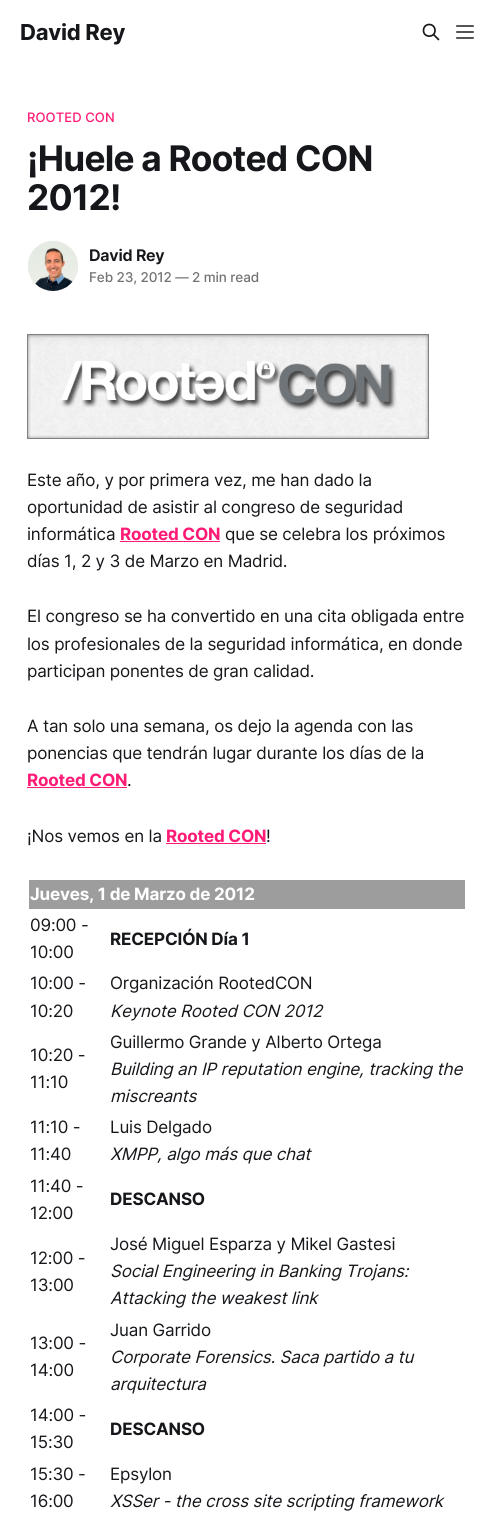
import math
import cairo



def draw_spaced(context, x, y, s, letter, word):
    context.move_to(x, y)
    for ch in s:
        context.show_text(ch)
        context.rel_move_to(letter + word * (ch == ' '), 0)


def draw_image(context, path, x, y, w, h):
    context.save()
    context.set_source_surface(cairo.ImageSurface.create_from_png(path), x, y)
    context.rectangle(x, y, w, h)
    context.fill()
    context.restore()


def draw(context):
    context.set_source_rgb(1, 1, 1)
    context.paint()
    context.new_path()
    context.move_to(438.5, 39.5)
    context.line_to(433.5, 34.5)
    context.move_to(435, 30.5)
    context.curve_to(435, 38, 423.5, 38, 423.5, 30.5)
    context.curve_to(423.5, 22.5, 435, 22.5, 435, 30.5)
    context.close_path()
    context.set_source_rgb(21 / 255, 23 / 255, 26 / 255)
    context.set_line_width(1.7)
    context.set_line_cap(cairo.LineCap.ROUND)
    context.set_line_join(cairo.LineJoin.ROUND)
    context.stroke()
    draw_image(context, "images/1.png", 456, 25, 18, 14)
    context.set_source_rgb(230 / 255, 230 / 255, 230 / 255)
    context.arc(53, 266, 26.5, 0, 2 * math.pi)
    context.fill_preserve()
    context.set_source_rgb(1, 1, 1)
    context.set_line_width(3)
    context.set_line_cap(cairo.LineCap.BUTT)
    context.set_line_join(cairo.LineJoin.MITER)
    context.stroke()
    draw_image(context, "images/2.png", 28, 241, 50, 50)
    draw_image(context, "images/3.png", 27, 334, 402, 105)
    context.set_source_rgb(1, 26 / 255, 117 / 255)
    context.rectangle(120, 541, 100, 1)
    context.fill()
    context.rectangle(27, 787, 100, 1)
    context.fill()
    context.rectangle(166, 843, 100, 1)
    context.fill()
    context.set_source_rgb(157 / 255, 157 / 255, 157 / 255)
    context.rectangle(29, 880, 436, 29)
    context.fill()
    context.select_font_face("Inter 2", cairo.FontSlant.NORMAL, cairo.FontWeight.BOLD)
    context.set_font_size(22)
    context.set_source_rgb(21 / 255, 23 / 255, 26 / 255)
    draw_spaced(context, 20, 40, "David Rey", -0.25, 0)
    context.select_font_face("Inter Medium")
    context.set_font_size(13)
    context.set_source_rgb(1, 26 / 255, 117 / 255)
    draw_spaced(context, 27, 122, "ROOTED CON", 0.1, 0)
    context.select_font_face("Inter", cairo.FontSlant.NORMAL, cairo.FontWeight.BOLD)
    context.set_font_size(35.25)
    context.set_source_rgb(21 / 255, 23 / 255, 26 / 255)
    draw_spaced(context, 27, 171, "¡Huele a Rooted CON", -0.75, 0)
    draw_spaced(context, 27, 210, "2012!", -0.75, 0)
    context.select_font_face("Inter SemiBold")
    context.set_font_size(16)
    draw_spaced(context, 89, 261, "David Rey", -0.25, 0)
    context.select_font_face("Inter Medium")
    context.set_font_size(13.5)
    context.set_source_rgb(115 / 255, 115 / 255, 115 / 255)
    draw_spaced(context, 89, 282, "Feb 23, 2012 — 2 min read", -0.1, 0)
    context.select_font_face("Inter")
    context.set_font_size(17)
    context.set_source_rgb(21 / 255, 23 / 255, 26 / 255)
    draw_spaced(context, 27, 486, "Este año, y por primera vez, me han dado la", -0.17, 0)
    draw_spaced(context, 27, 513, "oportunidad de asistir al congreso de seguridad", -0.17, 0)
    draw_spaced(context, 27, 540, "informática", -0.17, 0)
    context.select_font_face("Inter", cairo.FontSlant.NORMAL, cairo.FontWeight.BOLD)
    context.set_source_rgb(1, 26 / 255, 117 / 255)
    draw_spaced(context, 120, 540, "Rooted CON", -0.17, 0)
    context.select_font_face("Inter")
    context.set_source_rgb(21 / 255, 23 / 255, 26 / 255)
    draw_spaced(context, 225, 540, "que se celebra los próximos", -0.17, 0)
    draw_spaced(context, 27, 567, "días 1, 2 y 3 de Marzo en Madrid.", -0.17, 0)
    draw_spaced(context, 27, 622, "El congreso se ha convertido en una cita obligada entre", -0.17, 0)
    draw_spaced(context, 27, 650, "los profesionales de la seguridad informática, en donde", -0.17, 0)
    draw_spaced(context, 27, 677, "participan ponentes de gran calidad.", -0.17, 0)
    draw_spaced(context, 27, 732, "A tan solo una semana, os dejo la agenda con las", -0.17, 0)
    draw_spaced(context, 27, 759, "ponencias que tendrán lugar durante los días de la", -0.17, 0)
    context.select_font_face("Inter", cairo.FontSlant.NORMAL, cairo.FontWeight.BOLD)
    context.set_source_rgb(1, 26 / 255, 117 / 255)
    draw_spaced(context, 27, 786, "Rooted CON", -0.17, 0)
    context.select_font_face("Inter")
    context.set_source_rgb(21 / 255, 23 / 255, 26 / 255)
    draw_spaced(context, 127, 786, ".", -0.17, 0)
    draw_spaced(context, 27, 842, "¡Nos vemos en la", -0.17, 0)
    context.select_font_face("Inter", cairo.FontSlant.NORMAL, cairo.FontWeight.BOLD)
    context.set_source_rgb(1, 26 / 255, 117 / 255)
    draw_spaced(context, 166, 842, "Rooted CON", -0.17, 0)
    context.select_font_face("Inter")
    context.set_source_rgb(21 / 255, 23 / 255, 26 / 255)
    draw_spaced(context, 266, 842, "!", -0.17, 0)
    context.select_font_face("Inter", cairo.FontSlant.NORMAL, cairo.FontWeight.BOLD)
    context.set_source_rgb(1, 1, 1)
    draw_spaced(context, 30, 900, "Jueves, 1 de Marzo de 2012", -0.17, 0)
    context.select_font_face("Inter")
    context.set_source_rgb(21 / 255, 23 / 255, 26 / 255)
    draw_spaced(context, 30, 931, "09:00 -", -0.17, 0)
    draw_spaced(context, 30, 958, "10:00", -0.17, 0)
    context.select_font_face("Inter", cairo.FontSlant.NORMAL, cairo.FontWeight.BOLD)
    draw_spaced(context, 110, 945, "RECEPCIÓN Día 1", -0.17, 0)
    context.select_font_face("Inter")
    draw_spaced(context, 30, 989, "10:00 -", -0.17, 0)
    draw_spaced(context, 30, 1017, "10:20", -0.17, 0)
    draw_spaced(context, 110, 989, "Organización RootedCON", -0.17, 0)
    context.select_font_face("Inter", cairo.FontSlant.ITALIC)
    draw_spaced(context, 110, 1017, "Keynote Rooted CON 2012", -0.17, 0)
    context.select_font_face("Inter")
    draw_spaced(context, 30, 1061, "10:20 -", -0.17, 0)
    draw_spaced(context, 30, 1088, "11:10", -0.17, 0)
    draw_spaced(context, 110, 1048, "Guillermo Grande y Alberto Ortega", -0.17, 0)
    context.select_font_face("Inter", cairo.FontSlant.ITALIC)
    draw_spaced(context, 110, 1075, "Building an IP reputation engine, tracking the", -0.17, 0)
    draw_spaced(context, 110, 1102, "miscreants", -0.17, 0)
    context.select_font_face("Inter")
    draw_spaced(context, 30, 1133, "11:10 -", -0.17, 0)
    draw_spaced(context, 30, 1160, "11:40", -0.17, 0)
    draw_spaced(context, 110, 1133, "Luis Delgado", -0.17, 0)
    context.select_font_face("Inter", cairo.FontSlant.ITALIC)
    draw_spaced(context, 110, 1160, "XMPP, algo más que chat", -0.17, 0)
    context.select_font_face("Inter")
    draw_spaced(context, 30, 1192, "11:40 -", -0.17, 0)
    draw_spaced(context, 30, 1219, "12:00", -0.17, 0)
    context.select_font_face("Inter", cairo.FontSlant.NORMAL, cairo.FontWeight.BOLD)
    draw_spaced(context, 110, 1205, "DESCANSO", -0.17, 0)
    context.select_font_face("Inter")
    draw_spaced(context, 30, 1264, "12:00 -", -0.17, 0)
    draw_spaced(context, 30, 1291, "13:00", -0.17, 0)
    draw_spaced(context, 110, 1250, "José Miguel Esparza y Mikel Gastesi", -0.17, 0)
    context.select_font_face("Inter", cairo.FontSlant.ITALIC)
    draw_spaced(context, 110, 1277, "Social Engineering in Banking Trojans:", -0.17, 0)
    draw_spaced(context, 110, 1304, "Attacking the weakest link", -0.17, 0)
    context.select_font_face("Inter")
    draw_spaced(context, 30, 1349, "13:00 -", -0.17, 0)
    draw_spaced(context, 30, 1376, "14:00", -0.17, 0)
    draw_spaced(context, 110, 1336, "Juan Garrido", -0.17, 0)
    context.select_font_face("Inter", cairo.FontSlant.ITALIC)
    draw_spaced(context, 110, 1363, "Corporate Forensics. Saca partido a tu", -0.17, 0)
    draw_spaced(context, 110, 1390, "arquitectura", -0.17, 0)
    context.select_font_face("Inter")
    draw_spaced(context, 30, 1421, "14:00 -", -0.17, 0)
    draw_spaced(context, 30, 1448, "15:30", -0.17, 0)
    context.select_font_face("Inter", cairo.FontSlant.NORMAL, cairo.FontWeight.BOLD)
    draw_spaced(context, 110, 1435, "DESCANSO", -0.17, 0)
    context.select_font_face("Inter")
    draw_spaced(context, 30, 1480, "15:30 -", -0.17, 0)
    draw_spaced(context, 30, 1507, "16:00", -0.17, 0)
    draw_spaced(context, 110, 1480, "Epsylon", -0.17, 0)
    context.select_font_face("Inter", cairo.FontSlant.ITALIC)
    draw_spaced(context, 110, 1507, "XSSer - the cross site scripting framework", -0.17, 0)


surface = cairo.ImageSurface(cairo.Format.RGB24, 494, 1518)
context = cairo.Context(surface)
options = cairo.FontOptions()
options.set_hint_metrics(cairo.HintMetrics.OFF)
options.set_hint_style(cairo.HintStyle.NONE)
context.set_font_options(options)
context.set_miter_limit(4)
draw(context)
surface.write_to_png("out.png")
